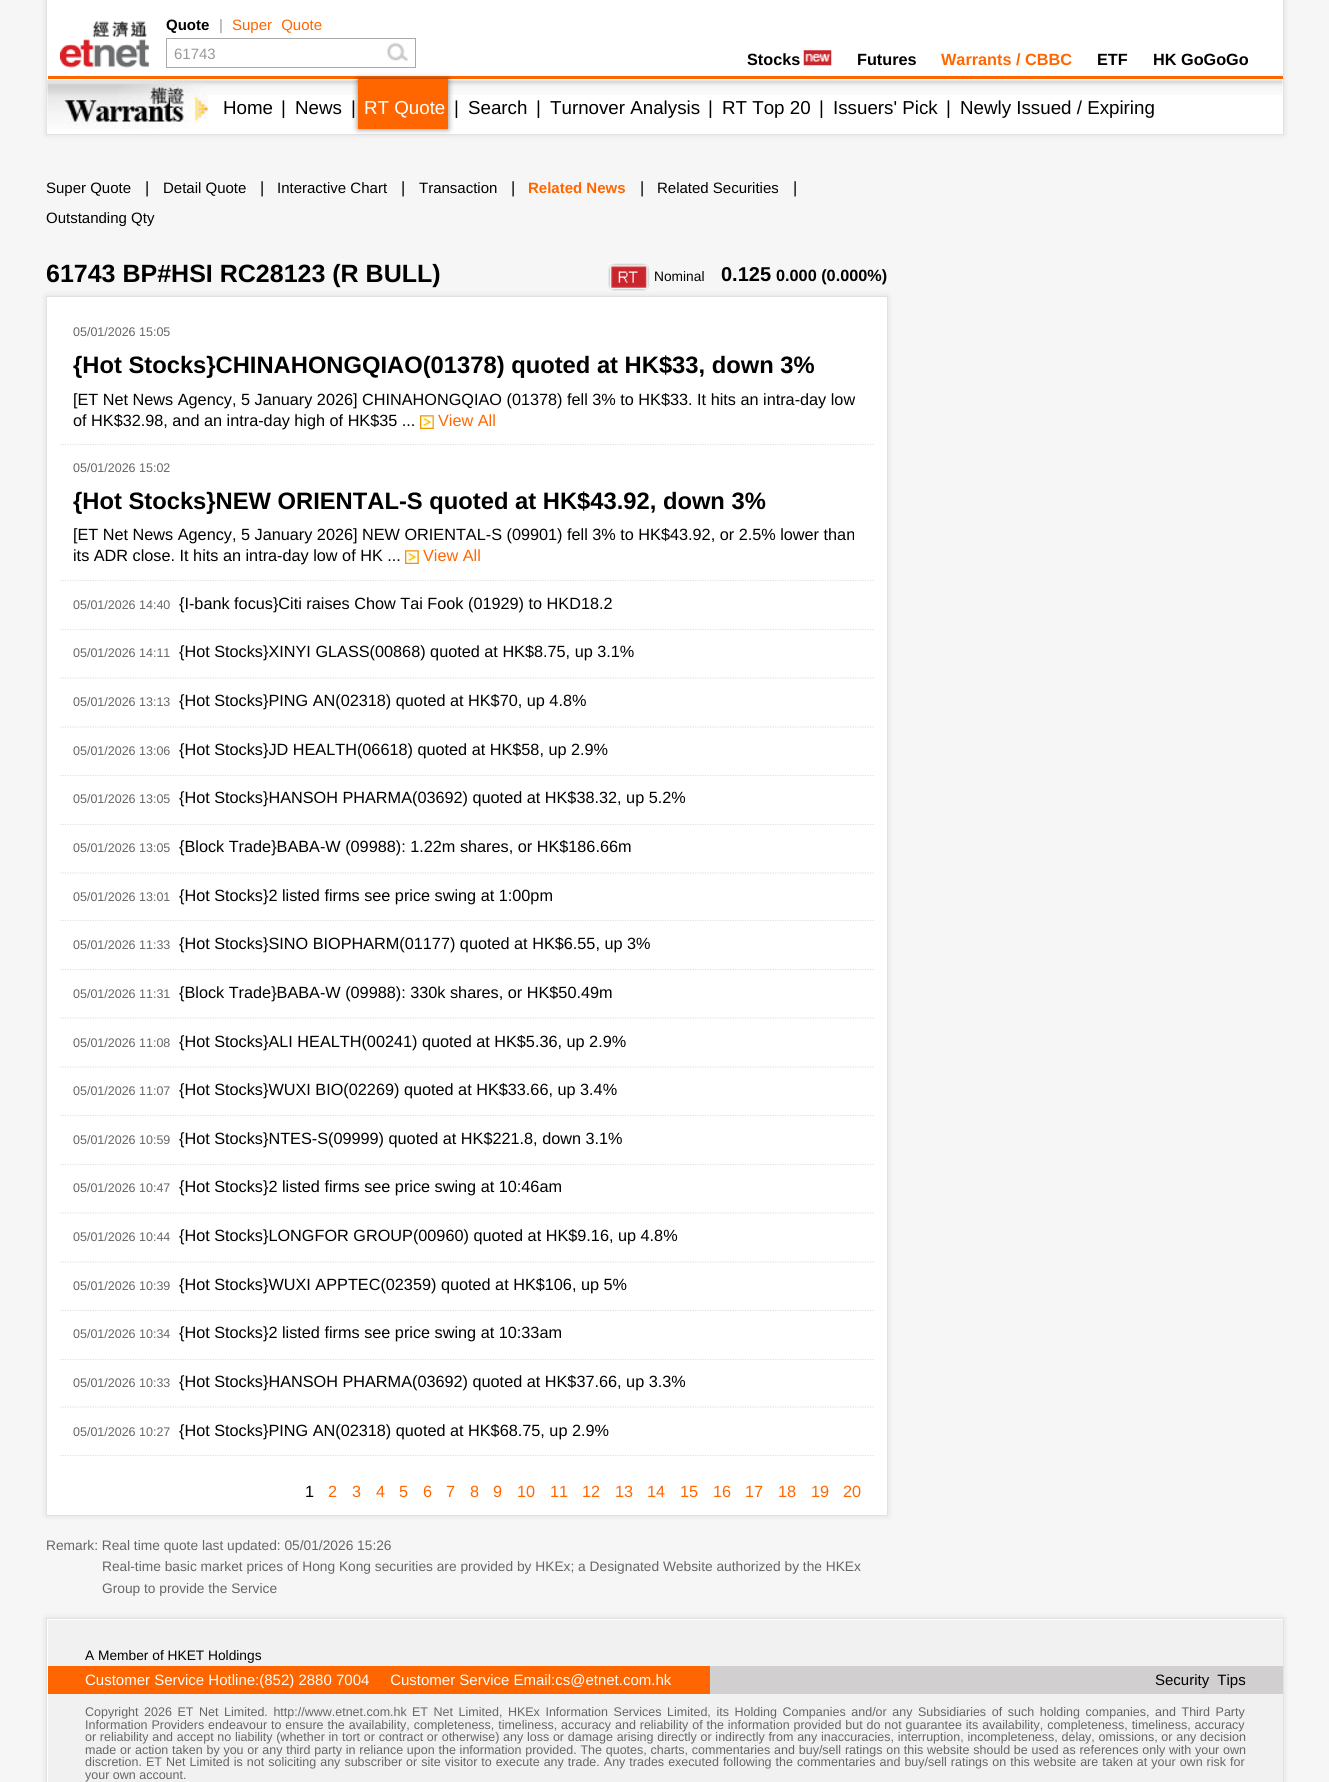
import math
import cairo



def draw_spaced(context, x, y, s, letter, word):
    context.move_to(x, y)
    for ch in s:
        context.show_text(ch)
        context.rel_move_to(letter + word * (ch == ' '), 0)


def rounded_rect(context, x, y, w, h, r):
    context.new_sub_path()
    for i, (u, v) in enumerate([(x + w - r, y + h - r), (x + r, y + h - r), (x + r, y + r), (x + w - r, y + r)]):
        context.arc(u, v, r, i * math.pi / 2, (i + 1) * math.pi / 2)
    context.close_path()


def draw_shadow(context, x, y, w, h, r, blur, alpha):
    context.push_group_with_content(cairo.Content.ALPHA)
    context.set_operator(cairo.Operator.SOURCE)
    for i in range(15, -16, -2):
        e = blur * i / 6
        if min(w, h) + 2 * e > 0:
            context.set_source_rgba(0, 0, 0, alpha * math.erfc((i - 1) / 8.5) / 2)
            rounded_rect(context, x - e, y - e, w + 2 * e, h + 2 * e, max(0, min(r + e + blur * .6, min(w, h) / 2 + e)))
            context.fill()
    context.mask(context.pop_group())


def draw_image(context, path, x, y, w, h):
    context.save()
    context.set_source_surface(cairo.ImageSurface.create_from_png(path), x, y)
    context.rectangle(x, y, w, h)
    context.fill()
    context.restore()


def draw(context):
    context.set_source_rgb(246 / 255, 246 / 255, 246 / 255)
    context.paint()
    context.set_source_rgb(0, 0, 0)
    draw_shadow(context, 46, -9, 1238, 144, 0, 3, 0.1)
    context.set_source_rgb(1, 1, 1)
    context.rectangle(47, 0, 1236, 134)
    context.fill()
    context.set_source_rgb(226 / 255, 226 / 255, 226 / 255)
    context.rectangle(1283, 0, 1, 135)
    context.fill()
    context.rectangle(46, 134, 1238, 1)
    context.fill()
    context.rectangle(46, 0, 1, 135)
    context.fill()
    draw_image(context, "images/1.png", 60, 21, 90, 47)
    context.rectangle(166.5, 38.5, 249, 29)
    context.set_source_rgb(169 / 255, 169 / 255, 169 / 255)
    context.set_line_width(1)
    context.stroke()
    draw_image(context, "images/2.png", 387, 42, 21, 20)
    draw_image(context, "images/3.png", 803, 50, 29, 16)
    context.set_source_rgb(1, 102 / 255, 0)
    context.rectangle(48, 76, 1235, 3)
    context.fill()
    draw_image(context, "images/4.png", 47, 80, 1236, 15)
    draw_image(context, "images/5.png", 47, 79, 161, 50)
    context.set_source_rgb(0, 0, 0)
    draw_shadow(context, 358, 79, 90, 50, 0, 3, 0.5)
    context.set_source_rgb(1, 102 / 255, 0)
    context.rectangle(358, 79, 90, 50)
    context.fill()
    draw_image(context, "images/6.png", 608, 263, 42, 28)
    context.set_source_rgb(0, 0, 0)
    draw_shadow(context, 46, 296, 842, 1220, 0, 3, 0.1)
    context.set_source_rgb(1, 1, 1)
    context.rectangle(46.5, 296.5, 841, 1219)
    context.fill_preserve()
    context.set_source_rgb(226 / 255, 226 / 255, 226 / 255)
    context.stroke()
    context.new_path()
    context.move_to(60, 444.5)
    context.line_to(874, 444.5)
    context.set_line_width(1.2)
    context.set_dash([1.25, 1.25])
    context.stroke()
    draw_image(context, "images/7.png", 420, 415, 14, 14)
    context.new_path()
    context.move_to(60, 580.5)
    context.line_to(874, 580.5)
    context.stroke()
    draw_image(context, "images/8.png", 405, 550, 14, 14)
    context.new_path()
    context.move_to(60, 629.5)
    context.line_to(874, 629.5)
    context.stroke()
    context.new_path()
    context.move_to(60, 678)
    context.line_to(874, 678)
    context.stroke()
    context.new_path()
    context.move_to(60, 727)
    context.line_to(874, 727)
    context.stroke()
    context.new_path()
    context.move_to(60, 775.5)
    context.line_to(874, 775.5)
    context.stroke()
    context.new_path()
    context.move_to(60, 824.5)
    context.line_to(874, 824.5)
    context.stroke()
    context.new_path()
    context.move_to(60, 873)
    context.line_to(874, 873)
    context.stroke()
    context.new_path()
    context.move_to(60, 920.5)
    context.line_to(874, 920.5)
    context.stroke()
    context.new_path()
    context.move_to(60, 969.5)
    context.line_to(874, 969.5)
    context.stroke()
    context.new_path()
    context.move_to(60, 1018)
    context.line_to(874, 1018)
    context.stroke()
    context.new_path()
    context.move_to(60, 1067)
    context.line_to(874, 1067)
    context.stroke()
    context.new_path()
    context.move_to(60, 1115.5)
    context.line_to(874, 1115.5)
    context.stroke()
    context.new_path()
    context.move_to(60, 1164.5)
    context.line_to(874, 1164.5)
    context.stroke()
    context.new_path()
    context.move_to(60, 1213)
    context.line_to(874, 1213)
    context.stroke()
    context.new_path()
    context.move_to(60, 1262)
    context.line_to(874, 1262)
    context.stroke()
    context.new_path()
    context.move_to(60, 1310.5)
    context.line_to(874, 1310.5)
    context.stroke()
    context.new_path()
    context.move_to(60, 1359.5)
    context.line_to(874, 1359.5)
    context.stroke()
    context.new_path()
    context.move_to(60, 1407)
    context.line_to(874, 1407)
    context.stroke()
    context.new_path()
    context.move_to(60, 1455.5)
    context.line_to(874, 1455.5)
    context.stroke()
    context.set_source_rgb(0, 0, 0)
    draw_shadow(context, 46, 1618, 1238, 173, 0, 3, 0.1)
    context.set_source_rgb(1, 1, 1)
    context.rectangle(47, 1619, 1, 163)
    context.fill()
    context.rectangle(46.5, 1618.5, 1237, 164)
    context.set_source_rgb(226 / 255, 226 / 255, 226 / 255)
    context.set_line_width(1)
    context.set_dash([])
    context.stroke()
    context.set_source_rgb(242 / 255, 241 / 255, 241 / 255)
    context.rectangle(48, 1620, 1235, 162)
    context.fill()
    context.set_source_rgb(1, 1, 1)
    context.rectangle(48, 1619, 1235, 1)
    context.fill()
    context.set_source_rgb(1, 102 / 255, 0)
    context.rectangle(48, 1666, 662, 28)
    context.fill()
    context.set_source_rgb(209 / 255, 207 / 255, 207 / 255)
    context.rectangle(710, 1666, 573, 28)
    context.fill()
    context.select_font_face("Liberation Sans", cairo.FontSlant.NORMAL, cairo.FontWeight.BOLD)
    context.set_font_size(15)
    context.set_source_rgb(0, 0, 0)
    context.move_to(166, 30)
    context.show_text("Quote")
    context.select_font_face("Liberation Sans")
    context.set_source_rgb(153 / 255, 153 / 255, 153 / 255)
    context.move_to(219, 30)
    context.show_text("|")
    context.set_source_rgb(1, 102 / 255, 0)
    draw_spaced(context, 232, 30, "Super Quote", 0, 5)
    context.set_source_rgb(153 / 255, 153 / 255, 153 / 255)
    context.move_to(174, 59)
    context.show_text("61743")
    context.select_font_face("Liberation Sans", cairo.FontSlant.NORMAL, cairo.FontWeight.BOLD)
    context.set_font_size(16.25)
    context.set_source_rgb(0, 0, 0)
    context.move_to(747, 65)
    context.show_text("Stocks")
    context.move_to(857, 65)
    context.show_text("Futures")
    context.set_source_rgb(1, 102 / 255, 0)
    context.move_to(941, 65)
    context.show_text("Warrants / CBBC")
    context.set_source_rgb(0, 0, 0)
    context.move_to(1097, 65)
    context.show_text("ETF")
    context.move_to(1153, 65)
    context.show_text("HK GoGoGo")
    context.select_font_face("Liberation Sans")
    context.set_font_size(18.75)
    context.move_to(223, 114)
    context.show_text("Home")
    context.move_to(281, 114)
    context.show_text("|")
    context.move_to(295, 114)
    context.show_text("News")
    context.move_to(351, 114)
    context.show_text("|")
    context.set_source_rgb(1, 1, 1)
    context.move_to(364, 114)
    context.show_text("RT Quote")
    context.set_source_rgb(0, 0, 0)
    context.move_to(454, 114)
    context.show_text("|")
    context.move_to(468, 114)
    context.show_text("Search")
    context.move_to(536, 114)
    context.show_text("|")
    context.move_to(550, 114)
    context.show_text("Turnover Analysis")
    context.move_to(708, 114)
    context.show_text("|")
    context.move_to(722, 114)
    context.show_text("RT Top 20")
    context.move_to(819, 114)
    context.show_text("|")
    context.move_to(833, 114)
    context.show_text("Issuers' Pick")
    context.move_to(946, 114)
    context.show_text("|")
    context.move_to(960, 114)
    context.show_text("Newly Issued / Expiring")
    context.set_font_size(15)
    context.move_to(46, 193)
    context.show_text("Super Quote")
    context.set_font_size(16.25)
    context.move_to(145, 193)
    context.show_text("|")
    context.set_font_size(15)
    context.move_to(163, 193)
    context.show_text("Detail Quote")
    context.set_font_size(16.25)
    context.move_to(260, 193)
    context.show_text("|")
    context.set_font_size(15)
    context.move_to(277, 193)
    context.show_text("Interactive Chart")
    context.set_font_size(16.25)
    context.move_to(401, 193)
    context.show_text("|")
    context.set_font_size(15)
    context.move_to(419, 193)
    context.show_text("Transaction")
    context.set_font_size(16.25)
    context.move_to(511, 193)
    context.show_text("|")
    context.select_font_face("Liberation Sans", cairo.FontSlant.NORMAL, cairo.FontWeight.BOLD)
    context.set_font_size(15)
    context.set_source_rgb(1, 102 / 255, 0)
    context.move_to(528, 193)
    context.show_text("Related News")
    context.select_font_face("Liberation Sans")
    context.set_font_size(16.25)
    context.set_source_rgb(0, 0, 0)
    context.move_to(640, 193)
    context.show_text("|")
    context.set_font_size(15)
    context.move_to(657, 193)
    context.show_text("Related Securities")
    context.set_font_size(16.25)
    context.move_to(793, 193)
    context.show_text("|")
    context.set_font_size(15)
    context.move_to(46, 223)
    context.show_text("Outstanding Qty")
    context.select_font_face("Liberation Sans", cairo.FontSlant.NORMAL, cairo.FontWeight.BOLD)
    context.set_font_size(25)
    context.move_to(46, 282)
    context.show_text("61743 BP#HSI RC28123 (R BULL)")
    context.select_font_face("Liberation Sans")
    context.set_font_size(13.75)
    context.move_to(654, 281)
    context.show_text("Nominal")
    context.select_font_face("Liberation Sans", cairo.FontSlant.NORMAL, cairo.FontWeight.BOLD)
    context.set_font_size(20)
    context.move_to(721, 281)
    context.show_text("0.125")
    context.set_font_size(16.25)
    context.move_to(776, 281)
    context.show_text("0.000 (0.000%)")
    context.select_font_face("Liberation Sans")
    context.set_font_size(12.5)
    context.set_source_rgb(102 / 255, 102 / 255, 102 / 255)
    context.move_to(73, 336)
    context.show_text("05/01/2026 15:05")
    context.select_font_face("Liberation Sans", cairo.FontSlant.NORMAL, cairo.FontWeight.BOLD)
    context.set_font_size(23.75)
    context.set_source_rgb(0, 0, 0)
    context.move_to(73, 373)
    context.show_text("{Hot Stocks}CHINAHONGQIAO(01378) quoted at HK$33, down 3%")
    context.select_font_face("Liberation Sans")
    context.set_font_size(16.25)
    context.move_to(73, 405)
    context.show_text("[ET Net News Agency, 5 January 2026] CHINAHONGQIAO (01378) fell 3% to HK$33. It hits an intra-day low")
    context.move_to(73, 426)
    context.show_text("of HK$32.98, and an intra-day high of HK$35 ...")
    context.set_source_rgb(1, 102 / 255, 0)
    context.move_to(438, 426)
    context.show_text("View All")
    context.set_font_size(12.5)
    context.set_source_rgb(102 / 255, 102 / 255, 102 / 255)
    context.move_to(73, 472)
    context.show_text("05/01/2026 15:02")
    context.select_font_face("Liberation Sans", cairo.FontSlant.NORMAL, cairo.FontWeight.BOLD)
    context.set_font_size(23.75)
    context.set_source_rgb(0, 0, 0)
    context.move_to(73, 509)
    context.show_text("{Hot Stocks}NEW ORIENTAL-S quoted at HK$43.92, down 3%")
    context.select_font_face("Liberation Sans")
    context.set_font_size(16.25)
    context.move_to(73, 540)
    context.show_text("[ET Net News Agency, 5 January 2026] NEW ORIENTAL-S (09901) fell 3% to HK$43.92, or 2.5% lower than")
    context.move_to(73, 561)
    context.show_text("its ADR close. It hits an intra-day low of HK ...")
    context.set_source_rgb(1, 102 / 255, 0)
    context.move_to(423, 561)
    context.show_text("View All")
    context.set_font_size(12.5)
    context.set_source_rgb(102 / 255, 102 / 255, 102 / 255)
    context.move_to(73, 609)
    context.show_text("05/01/2026 14:40")
    context.set_font_size(16.25)
    context.set_source_rgb(0, 0, 0)
    context.move_to(179, 609)
    context.show_text("{I-bank focus}Citi raises Chow Tai Fook (01929) to HKD18.2")
    context.set_font_size(12.5)
    context.set_source_rgb(102 / 255, 102 / 255, 102 / 255)
    context.move_to(73, 657)
    context.show_text("05/01/2026 14:11")
    context.set_font_size(16.25)
    context.set_source_rgb(0, 0, 0)
    context.move_to(179, 657)
    context.show_text("{Hot Stocks}XINYI GLASS(00868) quoted at HK$8.75, up 3.1%")
    context.set_font_size(12.5)
    context.set_source_rgb(102 / 255, 102 / 255, 102 / 255)
    context.move_to(73, 706)
    context.show_text("05/01/2026 13:13")
    context.set_font_size(16.25)
    context.set_source_rgb(0, 0, 0)
    context.move_to(179, 706)
    context.show_text("{Hot Stocks}PING AN(02318) quoted at HK$70, up 4.8%")
    context.set_font_size(12.5)
    context.set_source_rgb(102 / 255, 102 / 255, 102 / 255)
    context.move_to(73, 755)
    context.show_text("05/01/2026 13:06")
    context.set_font_size(16.25)
    context.set_source_rgb(0, 0, 0)
    context.move_to(179, 755)
    context.show_text("{Hot Stocks}JD HEALTH(06618) quoted at HK$58, up 2.9%")
    context.set_font_size(12.5)
    context.set_source_rgb(102 / 255, 102 / 255, 102 / 255)
    context.move_to(73, 803)
    context.show_text("05/01/2026 13:05")
    context.set_font_size(16.25)
    context.set_source_rgb(0, 0, 0)
    context.move_to(179, 803)
    context.show_text("{Hot Stocks}HANSOH PHARMA(03692) quoted at HK$38.32, up 5.2%")
    context.set_font_size(12.5)
    context.set_source_rgb(102 / 255, 102 / 255, 102 / 255)
    context.move_to(73, 852)
    context.show_text("05/01/2026 13:05")
    context.set_font_size(16.25)
    context.set_source_rgb(0, 0, 0)
    context.move_to(179, 852)
    context.show_text("{Block Trade}BABA-W (09988): 1.22m shares, or HK$186.66m")
    context.set_font_size(12.5)
    context.set_source_rgb(102 / 255, 102 / 255, 102 / 255)
    context.move_to(73, 901)
    context.show_text("05/01/2026 13:01")
    context.set_font_size(16.25)
    context.set_source_rgb(0, 0, 0)
    context.move_to(179, 901)
    context.show_text("{Hot Stocks}2 listed firms see price swing at 1:00pm")
    context.set_font_size(12.5)
    context.set_source_rgb(102 / 255, 102 / 255, 102 / 255)
    context.move_to(73, 949)
    context.show_text("05/01/2026 11:33")
    context.set_font_size(16.25)
    context.set_source_rgb(0, 0, 0)
    context.move_to(179, 949)
    context.show_text("{Hot Stocks}SINO BIOPHARM(01177) quoted at HK$6.55, up 3%")
    context.set_font_size(12.5)
    context.set_source_rgb(102 / 255, 102 / 255, 102 / 255)
    context.move_to(73, 998)
    context.show_text("05/01/2026 11:31")
    context.set_font_size(16.25)
    context.set_source_rgb(0, 0, 0)
    context.move_to(179, 998)
    context.show_text("{Block Trade}BABA-W (09988): 330k shares, or HK$50.49m")
    context.set_font_size(12.5)
    context.set_source_rgb(102 / 255, 102 / 255, 102 / 255)
    context.move_to(73, 1047)
    context.show_text("05/01/2026 11:08")
    context.set_font_size(16.25)
    context.set_source_rgb(0, 0, 0)
    context.move_to(179, 1047)
    context.show_text("{Hot Stocks}ALI HEALTH(00241) quoted at HK$5.36, up 2.9%")
    context.set_font_size(12.5)
    context.set_source_rgb(102 / 255, 102 / 255, 102 / 255)
    context.move_to(73, 1095)
    context.show_text("05/01/2026 11:07")
    context.set_font_size(16.25)
    context.set_source_rgb(0, 0, 0)
    context.move_to(179, 1095)
    context.show_text("{Hot Stocks}WUXI BIO(02269) quoted at HK$33.66, up 3.4%")
    context.set_font_size(12.5)
    context.set_source_rgb(102 / 255, 102 / 255, 102 / 255)
    context.move_to(73, 1144)
    context.show_text("05/01/2026 10:59")
    context.set_font_size(16.25)
    context.set_source_rgb(0, 0, 0)
    context.move_to(179, 1144)
    context.show_text("{Hot Stocks}NTES-S(09999) quoted at HK$221.8, down 3.1%")
    context.set_font_size(12.5)
    context.set_source_rgb(102 / 255, 102 / 255, 102 / 255)
    context.move_to(73, 1192)
    context.show_text("05/01/2026 10:47")
    context.set_font_size(16.25)
    context.set_source_rgb(0, 0, 0)
    context.move_to(179, 1192)
    context.show_text("{Hot Stocks}2 listed firms see price swing at 10:46am")
    context.set_font_size(12.5)
    context.set_source_rgb(102 / 255, 102 / 255, 102 / 255)
    context.move_to(73, 1241)
    context.show_text("05/01/2026 10:44")
    context.set_font_size(16.25)
    context.set_source_rgb(0, 0, 0)
    context.move_to(179, 1241)
    context.show_text("{Hot Stocks}LONGFOR GROUP(00960) quoted at HK$9.16, up 4.8%")
    context.set_font_size(12.5)
    context.set_source_rgb(102 / 255, 102 / 255, 102 / 255)
    context.move_to(73, 1290)
    context.show_text("05/01/2026 10:39")
    context.set_font_size(16.25)
    context.set_source_rgb(0, 0, 0)
    context.move_to(179, 1290)
    context.show_text("{Hot Stocks}WUXI APPTEC(02359) quoted at HK$106, up 5%")
    context.set_font_size(12.5)
    context.set_source_rgb(102 / 255, 102 / 255, 102 / 255)
    context.move_to(73, 1338)
    context.show_text("05/01/2026 10:34")
    context.set_font_size(16.25)
    context.set_source_rgb(0, 0, 0)
    context.move_to(179, 1338)
    context.show_text("{Hot Stocks}2 listed firms see price swing at 10:33am")
    context.set_font_size(12.5)
    context.set_source_rgb(102 / 255, 102 / 255, 102 / 255)
    context.move_to(73, 1387)
    context.show_text("05/01/2026 10:33")
    context.set_font_size(16.25)
    context.set_source_rgb(0, 0, 0)
    context.move_to(179, 1387)
    context.show_text("{Hot Stocks}HANSOH PHARMA(03692) quoted at HK$37.66, up 3.3%")
    context.set_font_size(12.5)
    context.set_source_rgb(102 / 255, 102 / 255, 102 / 255)
    context.move_to(73, 1436)
    context.show_text("05/01/2026 10:27")
    context.set_font_size(16.25)
    context.set_source_rgb(0, 0, 0)
    context.move_to(179, 1436)
    context.show_text("{Hot Stocks}PING AN(02318) quoted at HK$68.75, up 2.9%")
    context.move_to(305, 1497)
    context.show_text("1")
    context.set_source_rgb(1, 102 / 255, 0)
    context.move_to(328, 1497)
    context.show_text("2")
    context.move_to(352, 1497)
    context.show_text("3")
    context.move_to(376, 1497)
    context.show_text("4")
    context.move_to(399, 1497)
    context.show_text("5")
    context.move_to(423, 1497)
    context.show_text("6")
    context.move_to(446, 1497)
    context.show_text("7")
    context.move_to(470, 1497)
    context.show_text("8")
    context.move_to(493, 1497)
    context.show_text("9")
    context.move_to(517, 1497)
    context.show_text("10")
    context.move_to(550, 1497)
    context.show_text("11")
    context.move_to(582, 1497)
    context.show_text("12")
    context.move_to(615, 1497)
    context.show_text("13")
    context.move_to(647, 1497)
    context.show_text("14")
    context.move_to(680, 1497)
    context.show_text("15")
    context.move_to(713, 1497)
    context.show_text("16")
    context.move_to(745, 1497)
    context.show_text("17")
    context.move_to(778, 1497)
    context.show_text("18")
    context.move_to(811, 1497)
    context.show_text("19")
    context.move_to(843, 1497)
    context.show_text("20")
    context.set_font_size(13.75)
    context.set_source_rgb(102 / 255, 102 / 255, 102 / 255)
    context.move_to(46, 1550)
    context.show_text("Remark: Real time quote last updated: 05/01/2026 15:26")
    context.move_to(102, 1571)
    context.show_text("Real-time basic market prices of Hong Kong securities are provided by HKEx; a Designated Website authorized by the HKEx")
    context.move_to(102, 1593)
    context.show_text("Group to provide the Service")
    context.set_source_rgb(0, 0, 0)
    context.move_to(85, 1660)
    context.show_text("A Member of HKET Holdings")
    context.set_font_size(15)
    context.set_source_rgb(1, 1, 1)
    context.move_to(85, 1685)
    context.show_text("Customer Service Hotline:(852) 2880 7004     Customer Service Email:cs@etnet.com.hk")
    context.set_source_rgb(0, 0, 0)
    draw_spaced(context, 1155, 1685, "Security Tips", 0, 4)
    context.set_font_size(12.5)
    context.set_source_rgb(102 / 255, 102 / 255, 102 / 255)
    draw_spaced(context, 85, 1716, "Copyright 2026 ET Net Limited. http://www.etnet.com.hk", 0, 2.1)
    draw_spaced(context, 412, 1716, "ET Net Limited, HKEx Information Services Limited, its Holding Companies and/or any Subsidiaries of such holding companies, and Third Party", 0, 2.1)
    draw_spaced(context, 85, 1729, "Information Providers endeavour to ensure the availability, completeness, timeliness, accuracy and reliability of the information provided but do not guarantee its availability, completeness, timeliness, accuracy", 0, 0.4)
    draw_spaced(context, 85, 1741, "or reliability and accept no liability (whether in tort or contract or otherwise) any loss or damage arising directly or indirectly from any inaccuracies, interruption, incompleteness, delay, omissions, or any decision", 0, 0.25)
    draw_spaced(context, 85, 1754, "made or action taken by you or any third party in reliance upon the information provided. The quotes, charts, commentaries and buy/sell ratings on this website should be used as references only with your own", 0, 0.3)
    draw_spaced(context, 85, 1766, "discretion. ET Net Limited is not soliciting any subscriber or site visitor to execute any trade. Any trades executed following the commentaries and buy/sell ratings on this website are taken at your own risk for", 0, 0.55)
    context.move_to(85, 1779)
    context.show_text("your own account.")


surface = cairo.ImageSurface(cairo.Format.RGB24, 1329, 1782)
context = cairo.Context(surface)
options = cairo.FontOptions()
options.set_hint_metrics(cairo.HintMetrics.OFF)
options.set_hint_style(cairo.HintStyle.NONE)
context.set_font_options(options)
context.set_miter_limit(4)
draw(context)
surface.write_to_png("out.png")
